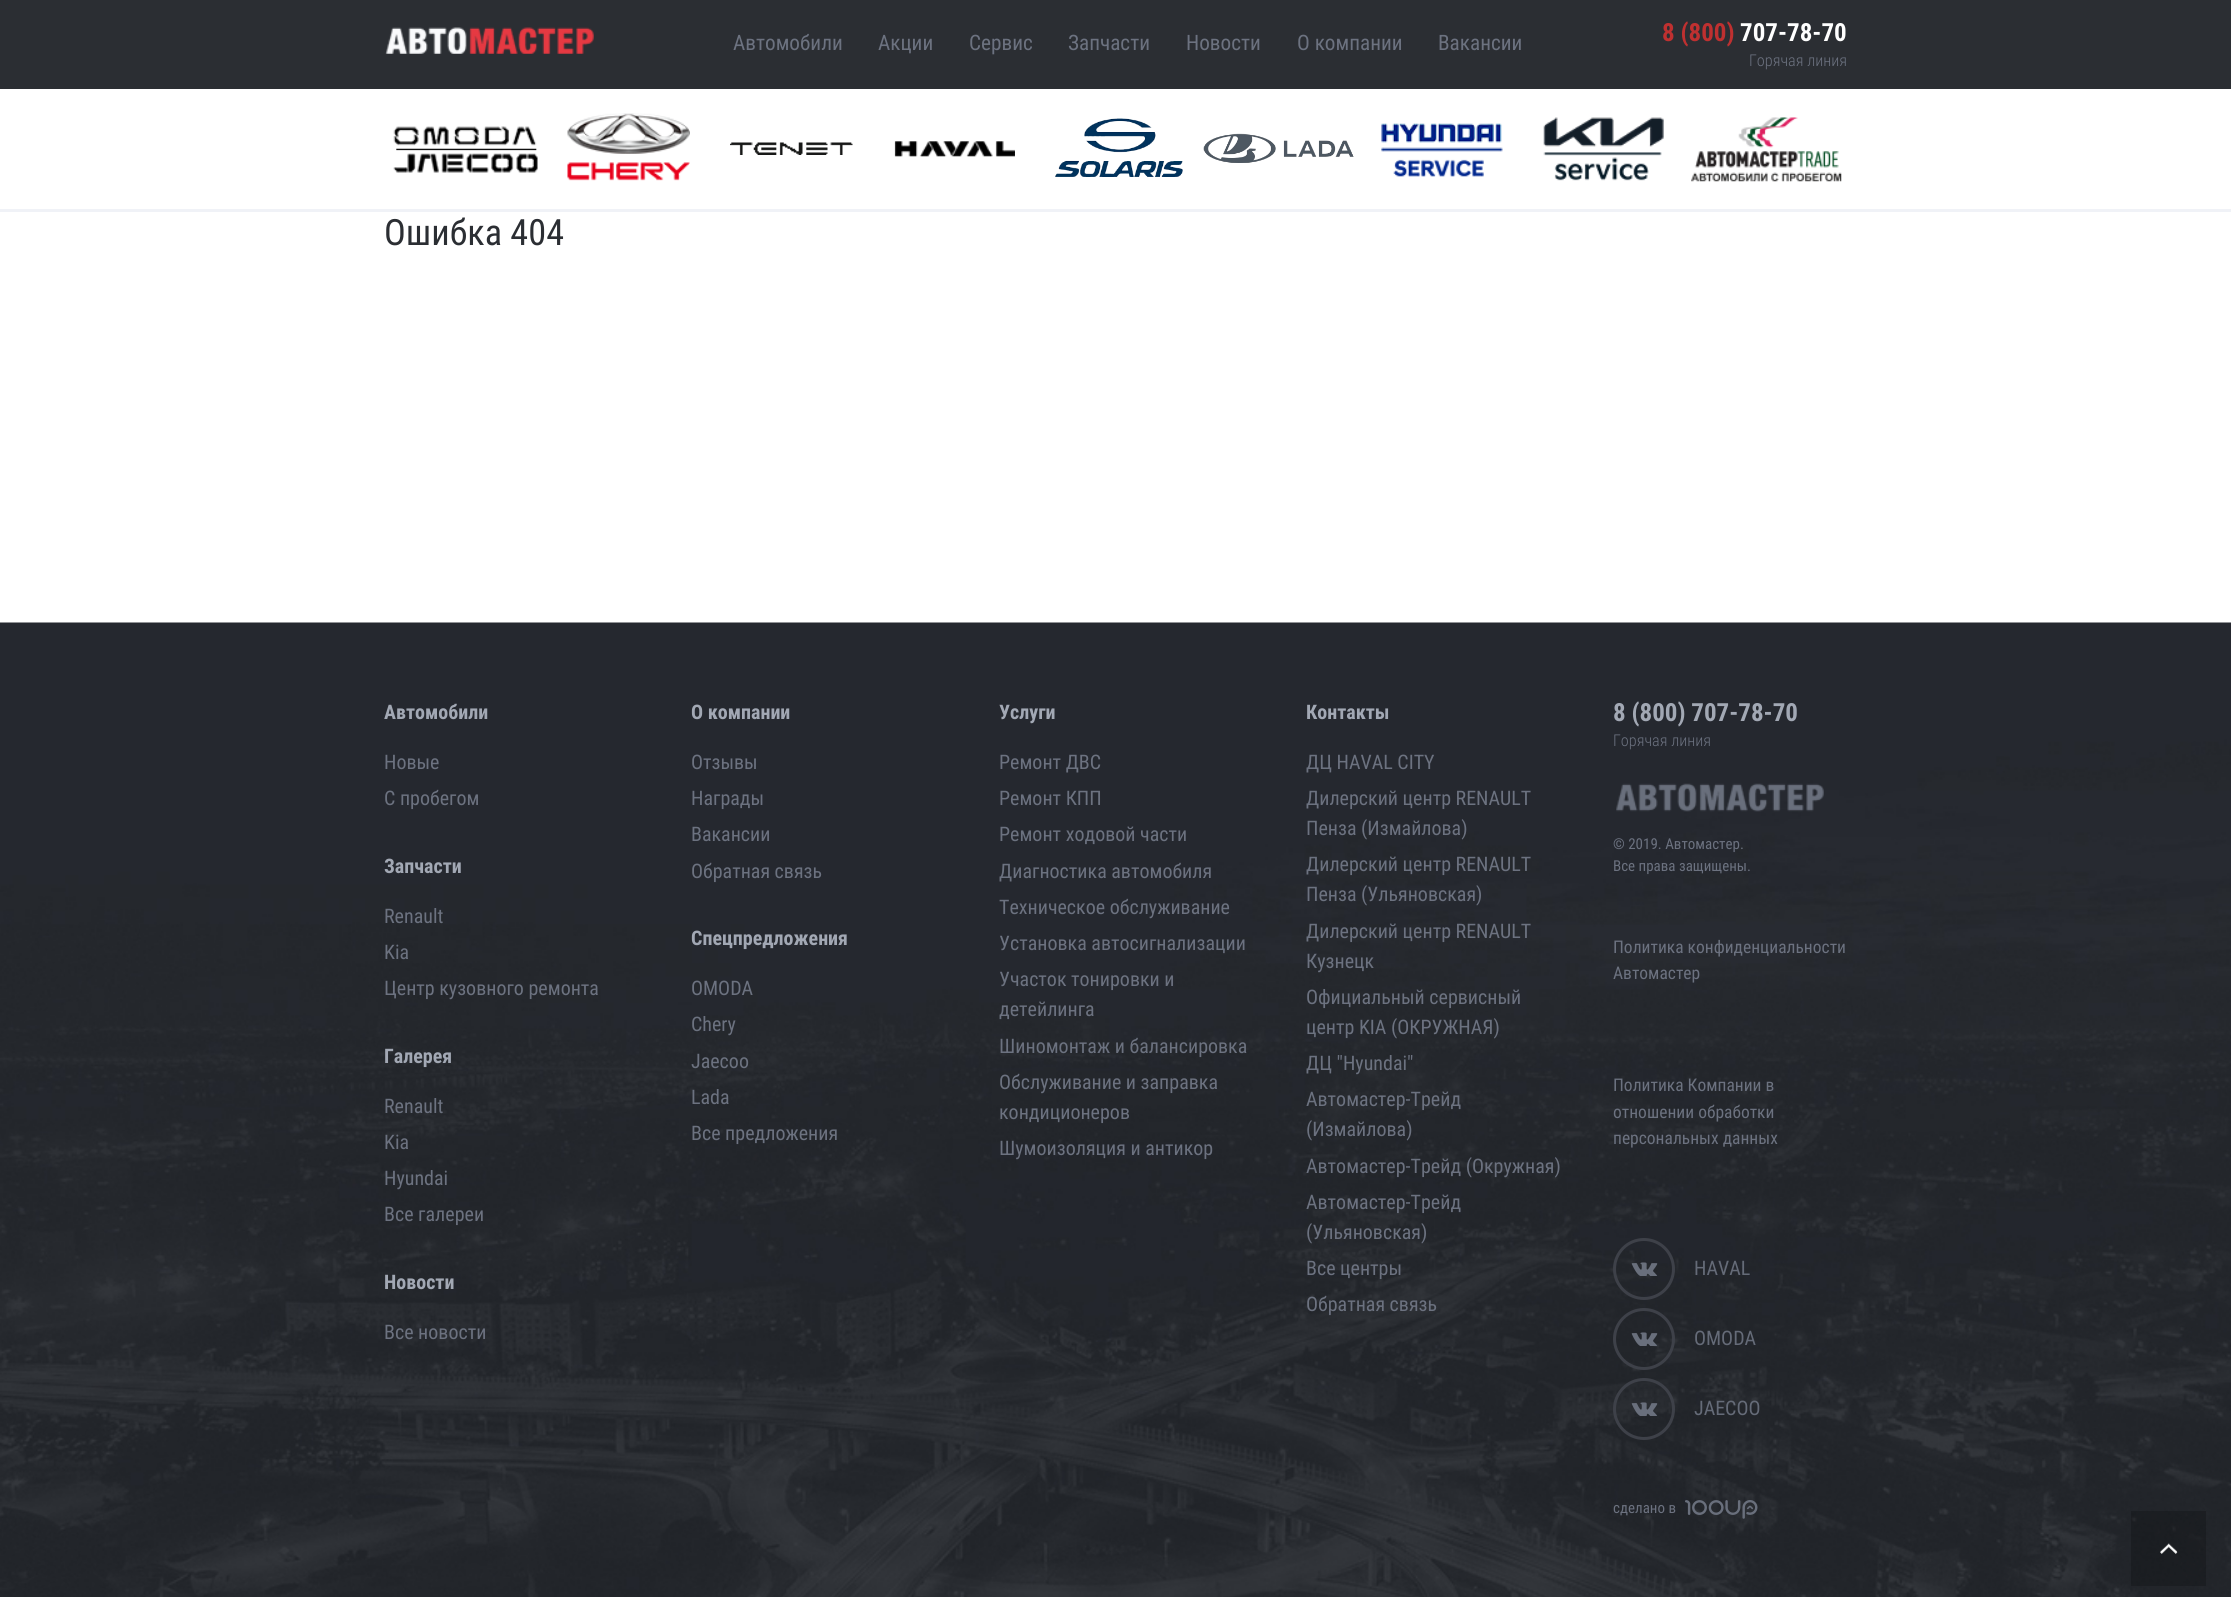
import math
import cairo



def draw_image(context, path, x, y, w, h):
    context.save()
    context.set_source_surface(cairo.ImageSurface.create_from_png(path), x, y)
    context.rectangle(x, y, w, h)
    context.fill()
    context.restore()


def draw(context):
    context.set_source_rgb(1, 1, 1)
    context.paint()
    context.set_source_rgb(43 / 255, 46 / 255, 51 / 255)
    context.rectangle(0, 0, 2231, 89)
    context.fill()
    draw_image(context, "images/1.png", 385, 27, 209, 27)
    context.set_source_rgb(240 / 255, 242 / 255, 247 / 255)
    context.rectangle(0, 209, 2231, 3)
    context.fill()
    draw_image(context, "images/2.png", 393, 126, 145, 47)
    draw_image(context, "images/3.png", 567, 113, 123, 68)
    draw_image(context, "images/4.png", 730, 142, 123, 13)
    draw_image(context, "images/5.png", 894, 141, 121, 16)
    draw_image(context, "images/6.png", 1055, 118, 128, 59)
    draw_image(context, "images/7.png", 1203, 133, 151, 30)
    draw_image(context, "images/8.png", 1381, 123, 122, 54)
    draw_image(context, "images/9.png", 1543, 117, 121, 64)
    draw_image(context, "images/10.png", 1691, 117, 151, 65)
    draw_image(context, "images/11.png", 0, 622, 2231, 975)
    draw_image(context, "images/12.png", 1616, 783, 208, 29)
    context.arc(1644, 1269, 29.5, 0, 2 * math.pi)
    context.set_source_rgb(62 / 255, 65 / 255, 73 / 255)
    context.set_line_width(3)
    context.stroke()
    draw_image(context, "images/13.png", 1631, 1262, 27, 14)
    context.arc(1644, 1339, 29.5, 0, 2 * math.pi)
    context.stroke()
    draw_image(context, "images/14.png", 1631, 1332, 27, 14)
    context.arc(1644, 1409, 29.5, 0, 2 * math.pi)
    context.stroke()
    draw_image(context, "images/15.png", 1631, 1402, 27, 14)
    draw_image(context, "images/16.png", 1685, 1500, 73, 19)
    context.set_source_rgba(0, 0, 0, 0.2)
    context.rectangle(2131, 1511, 75, 75)
    context.fill()
    draw_image(context, "images/17.png", 2160, 1543, 18, 11)
    context.select_font_face("Roboto Condensed")
    context.set_font_size(21.25)
    context.set_source_rgb(108 / 255, 114 / 255, 128 / 255)
    context.move_to(733, 50)
    context.show_text("Автомобили")
    context.move_to(878, 50)
    context.show_text("Акции")
    context.move_to(969, 50)
    context.show_text("Сервис")
    context.move_to(1068, 50)
    context.show_text("Запчасти")
    context.move_to(1186, 50)
    context.show_text("Новости")
    context.move_to(1297, 50)
    context.show_text("О компании")
    context.move_to(1438, 50)
    context.show_text("Вакансии")
    context.select_font_face("Roboto Condensed", cairo.FontSlant.NORMAL, cairo.FontWeight.BOLD)
    context.set_font_size(25)
    context.set_source_rgb(191 / 255, 48 / 255, 48 / 255)
    context.move_to(1662, 41)
    context.show_text("8 (800)")
    context.set_source_rgb(1, 1, 1)
    context.move_to(1740, 41)
    context.show_text("707-78-70")
    context.select_font_face("Roboto Condensed Light")
    context.set_font_size(16.25)
    context.set_source_rgb(108 / 255, 114 / 255, 128 / 255)
    context.move_to(1749, 66)
    context.show_text("Горячая линия")
    context.select_font_face("Roboto Condensed")
    context.set_font_size(36.25)
    context.set_source_rgb(43 / 255, 46 / 255, 51 / 255)
    context.move_to(384, 245)
    context.show_text("Ошибка 404")
    context.select_font_face("Roboto Condensed", cairo.FontSlant.NORMAL, cairo.FontWeight.BOLD)
    context.set_font_size(20)
    context.set_source_rgb(162 / 255, 168 / 255, 180 / 255)
    context.move_to(384, 719)
    context.show_text("Автомобили")
    context.select_font_face("Roboto Condensed")
    context.set_source_rgb(108 / 255, 114 / 255, 128 / 255)
    context.move_to(384, 769)
    context.show_text("Новые")
    context.move_to(384, 805)
    context.show_text("С пробегом")
    context.select_font_face("Roboto Condensed", cairo.FontSlant.NORMAL, cairo.FontWeight.BOLD)
    context.set_source_rgb(162 / 255, 168 / 255, 180 / 255)
    context.move_to(384, 873)
    context.show_text("Запчасти")
    context.select_font_face("Roboto Condensed")
    context.set_source_rgb(108 / 255, 114 / 255, 128 / 255)
    context.move_to(384, 923)
    context.show_text("Renault")
    context.move_to(384, 959)
    context.show_text("Kia")
    context.move_to(384, 995)
    context.show_text("Центр кузовного ремонта")
    context.select_font_face("Roboto Condensed", cairo.FontSlant.NORMAL, cairo.FontWeight.BOLD)
    context.set_source_rgb(162 / 255, 168 / 255, 180 / 255)
    context.move_to(384, 1063)
    context.show_text("Галерея")
    context.select_font_face("Roboto Condensed")
    context.set_source_rgb(108 / 255, 114 / 255, 128 / 255)
    context.move_to(384, 1113)
    context.show_text("Renault")
    context.move_to(384, 1149)
    context.show_text("Kia")
    context.move_to(384, 1185)
    context.show_text("Hyundai")
    context.move_to(384, 1221)
    context.show_text("Все галереи")
    context.select_font_face("Roboto Condensed", cairo.FontSlant.NORMAL, cairo.FontWeight.BOLD)
    context.set_source_rgb(162 / 255, 168 / 255, 180 / 255)
    context.move_to(384, 1289)
    context.show_text("Новости")
    context.select_font_face("Roboto Condensed")
    context.set_source_rgb(108 / 255, 114 / 255, 128 / 255)
    context.move_to(384, 1339)
    context.show_text("Все новости")
    context.select_font_face("Roboto Condensed", cairo.FontSlant.NORMAL, cairo.FontWeight.BOLD)
    context.set_source_rgb(162 / 255, 168 / 255, 180 / 255)
    context.move_to(691, 719)
    context.show_text("О компании")
    context.select_font_face("Roboto Condensed")
    context.set_source_rgb(108 / 255, 114 / 255, 128 / 255)
    context.move_to(691, 769)
    context.show_text("Отзывы")
    context.move_to(691, 805)
    context.show_text("Награды")
    context.move_to(691, 841)
    context.show_text("Вакансии")
    context.move_to(691, 878)
    context.show_text("Обратная связь")
    context.select_font_face("Roboto Condensed", cairo.FontSlant.NORMAL, cairo.FontWeight.BOLD)
    context.set_source_rgb(162 / 255, 168 / 255, 180 / 255)
    context.move_to(691, 945)
    context.show_text("Спецпредложения")
    context.select_font_face("Roboto Condensed")
    context.set_source_rgb(108 / 255, 114 / 255, 128 / 255)
    context.move_to(691, 995)
    context.show_text("OMODA")
    context.move_to(691, 1031)
    context.show_text("Chery")
    context.move_to(691, 1068)
    context.show_text("Jaecoo")
    context.move_to(691, 1104)
    context.show_text("Lada")
    context.move_to(691, 1140)
    context.show_text("Все предложения")
    context.select_font_face("Roboto Condensed", cairo.FontSlant.NORMAL, cairo.FontWeight.BOLD)
    context.set_source_rgb(162 / 255, 168 / 255, 180 / 255)
    context.move_to(999, 719)
    context.show_text("Услуги")
    context.select_font_face("Roboto Condensed")
    context.set_source_rgb(108 / 255, 114 / 255, 128 / 255)
    context.move_to(999, 769)
    context.show_text("Ремонт ДВС")
    context.move_to(999, 805)
    context.show_text("Ремонт КПП")
    context.move_to(999, 841)
    context.show_text("Ремонт ходовой части")
    context.move_to(999, 878)
    context.show_text("Диагностика автомобиля")
    context.move_to(999, 914)
    context.show_text("Техническое обслуживание")
    context.move_to(999, 950)
    context.show_text("Установка автосигнализации")
    context.move_to(999, 986)
    context.show_text("Участок тонировки и")
    context.move_to(999, 1016)
    context.show_text("детейлинга")
    context.move_to(999, 1053)
    context.show_text("Шиномонтаж и балансировка")
    context.move_to(999, 1089)
    context.show_text("Обслуживание и заправка")
    context.move_to(999, 1119)
    context.show_text("кондиционеров")
    context.move_to(999, 1155)
    context.show_text("Шумоизоляция и антикор")
    context.select_font_face("Roboto Condensed", cairo.FontSlant.NORMAL, cairo.FontWeight.BOLD)
    context.set_source_rgb(162 / 255, 168 / 255, 180 / 255)
    context.move_to(1306, 719)
    context.show_text("Контакты")
    context.select_font_face("Roboto Condensed")
    context.set_source_rgb(108 / 255, 114 / 255, 128 / 255)
    context.move_to(1306, 769)
    context.show_text("ДЦ HAVAL CITY")
    context.move_to(1306, 805)
    context.show_text("Дилерский центр RENAULT")
    context.move_to(1306, 835)
    context.show_text("Пенза (Измайлова)")
    context.move_to(1306, 871)
    context.show_text("Дилерский центр RENAULT")
    context.move_to(1306, 901)
    context.show_text("Пенза (Ульяновская)")
    context.move_to(1306, 938)
    context.show_text("Дилерский центр RENAULT")
    context.move_to(1306, 968)
    context.show_text("Кузнецк")
    context.move_to(1306, 1004)
    context.show_text("Официальный сервисный")
    context.move_to(1306, 1034)
    context.show_text("центр KIA (ОКРУЖНАЯ)")
    context.move_to(1306, 1070)
    context.show_text("ДЦ \"Hyundai\"")
    context.move_to(1306, 1106)
    context.show_text("Автомастер-Трейд")
    context.move_to(1306, 1136)
    context.show_text("(Измайлова)")
    context.move_to(1306, 1173)
    context.show_text("Автомастер-Трейд (Окружная)")
    context.move_to(1306, 1209)
    context.show_text("Автомастер-Трейд")
    context.move_to(1306, 1239)
    context.show_text("(Ульяновская)")
    context.move_to(1306, 1275)
    context.show_text("Все центры")
    context.move_to(1306, 1311)
    context.show_text("Обратная связь")
    context.select_font_face("Roboto Condensed", cairo.FontSlant.NORMAL, cairo.FontWeight.BOLD)
    context.set_font_size(25)
    context.set_source_rgb(162 / 255, 168 / 255, 180 / 255)
    context.move_to(1613, 721)
    context.show_text("8 (800) 707-78-70")
    context.select_font_face("Roboto Condensed Light")
    context.set_font_size(16.25)
    context.set_source_rgb(108 / 255, 114 / 255, 128 / 255)
    context.move_to(1613, 746)
    context.show_text("Горячая линия")
    context.select_font_face("Roboto Condensed")
    context.set_font_size(15)
    context.move_to(1613, 849)
    context.show_text("© 2019. Автомастер.")
    context.move_to(1613, 871)
    context.show_text("Все права защищены.")
    context.set_font_size(17.5)
    context.move_to(1613, 953)
    context.show_text("Политика конфиденциальности")
    context.move_to(1613, 979)
    context.show_text("Автомастер")
    context.move_to(1613, 1091)
    context.show_text("Политика Компании в")
    context.move_to(1613, 1118)
    context.show_text("отношении обработки")
    context.move_to(1613, 1144)
    context.show_text("персональных данных")
    context.set_font_size(20)
    context.set_source_rgb(101 / 255, 107 / 255, 120 / 255)
    context.move_to(1694, 1275)
    context.show_text("HAVAL")
    context.move_to(1694, 1345)
    context.show_text("OMODA")
    context.move_to(1694, 1415)
    context.show_text("JAECOO")
    context.set_font_size(15)
    context.set_source_rgb(108 / 255, 114 / 255, 128 / 255)
    context.move_to(1613, 1513)
    context.show_text("cделано в")


surface = cairo.ImageSurface(cairo.Format.RGB24, 2231, 1597)
context = cairo.Context(surface)
options = cairo.FontOptions()
options.set_hint_metrics(cairo.HintMetrics.OFF)
options.set_hint_style(cairo.HintStyle.NONE)
context.set_font_options(options)
context.set_miter_limit(4)
draw(context)
surface.write_to_png("out.png")
